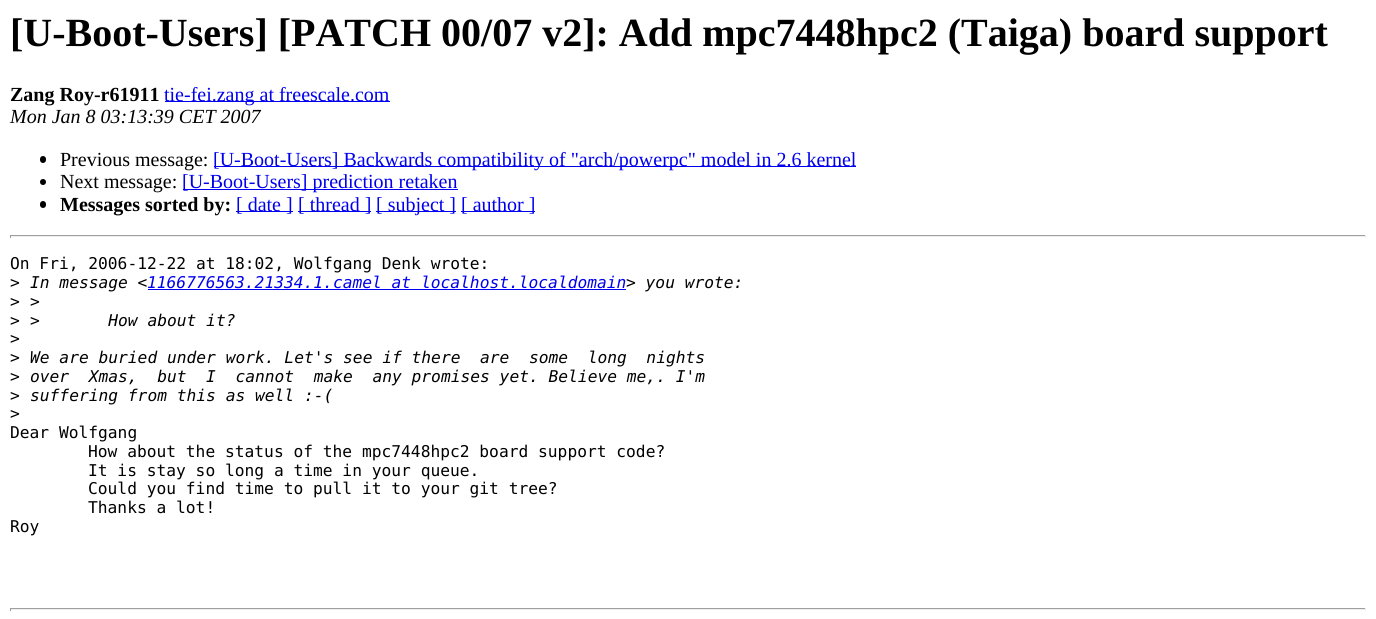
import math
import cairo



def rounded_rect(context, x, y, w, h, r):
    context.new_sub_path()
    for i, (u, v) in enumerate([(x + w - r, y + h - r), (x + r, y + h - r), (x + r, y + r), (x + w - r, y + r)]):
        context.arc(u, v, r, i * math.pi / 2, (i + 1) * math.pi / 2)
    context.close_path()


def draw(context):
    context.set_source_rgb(1, 1, 1)
    context.paint()
    context.set_source_rgb(0, 0, 238 / 255)
    context.rectangle(165, 101, 225, 1)
    context.fill()
    context.set_source_rgb(0, 0, 0)
    rounded_rect(context, 40, 156, 6, 7, 3)
    context.fill()
    context.set_source_rgb(0, 0, 238 / 255)
    context.rectangle(214, 166, 642, 1)
    context.fill()
    context.set_source_rgb(0, 0, 0)
    context.arc(43, 182, 3, 0, 2 * math.pi)
    context.fill()
    context.set_source_rgb(0, 0, 238 / 255)
    context.rectangle(183, 189, 275, 1)
    context.fill()
    context.set_source_rgb(0, 0, 0)
    rounded_rect(context, 40, 201, 6, 7, 3)
    context.fill()
    context.set_source_rgb(0, 0, 238 / 255)
    context.rectangle(236, 211, 57, 1)
    context.fill()
    context.rectangle(298, 211, 73, 1)
    context.fill()
    context.rectangle(376, 211, 80, 1)
    context.fill()
    context.rectangle(461, 211, 74, 1)
    context.fill()
    context.set_source_rgb(159 / 255, 159 / 255, 159 / 255)
    context.rectangle(10, 235, 1356, 1)
    context.fill()
    context.set_source_rgb(238 / 255, 238 / 255, 238 / 255)
    context.rectangle(1365, 235, 1, 3)
    context.fill()
    context.rectangle(10, 236, 1356, 1)
    context.fill()
    context.set_source_rgb(159 / 255, 159 / 255, 159 / 255)
    context.rectangle(10, 235, 1, 3)
    context.fill()
    context.set_source_rgb(0, 0, 238 / 255)
    context.rectangle(148, 289, 478, 1)
    context.fill()
    context.set_source_rgb(159 / 255, 159 / 255, 159 / 255)
    context.rectangle(10, 608, 1356, 1)
    context.fill()
    context.set_source_rgb(238 / 255, 238 / 255, 238 / 255)
    context.rectangle(1365, 608, 1, 3)
    context.fill()
    context.rectangle(10, 609, 1356, 1)
    context.fill()
    context.set_source_rgb(159 / 255, 159 / 255, 159 / 255)
    context.rectangle(10, 608, 1, 3)
    context.fill()
    context.select_font_face("Liberation Serif", cairo.FontSlant.NORMAL, cairo.FontWeight.BOLD)
    context.set_font_size(40)
    context.set_source_rgb(0, 0, 0)
    context.move_to(10, 46)
    context.show_text("[U-Boot-Users] [PATCH 00/07 v2]: Add mpc7448hpc2 (Taiga) board support")
    context.set_font_size(20)
    context.move_to(10, 101)
    context.show_text("Zang Roy-r61911")
    context.select_font_face("Liberation Serif")
    context.set_source_rgb(0, 0, 238 / 255)
    context.move_to(164, 101)
    context.show_text("tie-fei.zang at freescale.com")
    context.select_font_face("Liberation Serif", cairo.FontSlant.ITALIC)
    context.set_source_rgb(0, 0, 0)
    context.move_to(10, 123)
    context.show_text("Mon Jan 8 03:13:39 CET 2007")
    context.select_font_face("Liberation Serif")
    context.move_to(60, 166)
    context.show_text("Previous message:")
    context.set_source_rgb(0, 0, 238 / 255)
    context.move_to(213, 166)
    context.show_text("[U-Boot-Users] Backwards compatibility of \"arch/powerpc\" model in 2.6 kernel")
    context.set_source_rgb(0, 0, 0)
    context.move_to(60, 188)
    context.show_text("Next message:")
    context.set_source_rgb(0, 0, 238 / 255)
    context.move_to(182, 188)
    context.show_text("[U-Boot-Users] prediction retaken")
    context.select_font_face("Liberation Serif", cairo.FontSlant.NORMAL, cairo.FontWeight.BOLD)
    context.set_source_rgb(0, 0, 0)
    context.move_to(60, 211)
    context.show_text("Messages sorted by:")
    context.select_font_face("Liberation Serif")
    context.set_source_rgb(0, 0, 238 / 255)
    context.move_to(236, 211)
    context.show_text("[ date ]")
    context.move_to(298, 211)
    context.show_text("[ thread ]")
    context.move_to(376, 211)
    context.show_text("[ subject ]")
    context.move_to(461, 211)
    context.show_text("[ author ]")
    context.select_font_face("DejaVu Sans Mono")
    context.set_font_size(16.25)
    context.set_source_rgb(0, 0, 0)
    context.move_to(10, 269)
    context.show_text("On Fri, 2006-12-22 at 18:02, Wolfgang Denk wrote:")
    context.move_to(10, 288)
    context.show_text(">")
    context.select_font_face("DejaVu Sans Mono", cairo.FontSlant.ITALIC)
    context.move_to(30, 288)
    context.show_text("In message <")
    context.set_source_rgb(0, 0, 238 / 255)
    context.move_to(147, 288)
    context.show_text("1166776563.21334.1.camel at localhost.localdomain")
    context.set_source_rgb(0, 0, 0)
    context.move_to(626, 288)
    context.show_text("> you wrote:")
    context.select_font_face("DejaVu Sans Mono")
    context.move_to(10, 307)
    context.show_text(">")
    context.select_font_face("DejaVu Sans Mono", cairo.FontSlant.ITALIC)
    context.move_to(30, 307)
    context.show_text(">")
    context.select_font_face("DejaVu Sans Mono")
    context.move_to(10, 326)
    context.show_text(">")
    context.select_font_face("DejaVu Sans Mono", cairo.FontSlant.ITALIC)
    context.move_to(30, 326)
    context.show_text(">       How about it?")
    context.select_font_face("DejaVu Sans Mono")
    context.move_to(10, 344)
    context.show_text(">")
    context.move_to(10, 363)
    context.show_text(">")
    context.select_font_face("DejaVu Sans Mono", cairo.FontSlant.ITALIC)
    context.move_to(30, 363)
    context.show_text("We are buried under work. Let's see if there  are  some  long  nights")
    context.select_font_face("DejaVu Sans Mono")
    context.move_to(10, 382)
    context.show_text(">")
    context.select_font_face("DejaVu Sans Mono", cairo.FontSlant.ITALIC)
    context.move_to(30, 382)
    context.show_text("over  Xmas,  but  I  cannot  make  any promises yet. Believe me,. I'm")
    context.select_font_face("DejaVu Sans Mono")
    context.move_to(10, 401)
    context.show_text(">")
    context.select_font_face("DejaVu Sans Mono", cairo.FontSlant.ITALIC)
    context.move_to(30, 401)
    context.show_text("suffering from this as well :-(")
    context.select_font_face("DejaVu Sans Mono")
    context.move_to(10, 419)
    context.show_text(">")
    context.move_to(10, 438)
    context.show_text("Dear Wolfgang")
    context.move_to(88, 457)
    context.show_text("How about the status of the mpc7448hpc2 board support code?")
    context.move_to(88, 476)
    context.show_text("It is stay so long a time in your queue.")
    context.move_to(88, 494)
    context.show_text("Could you find time to pull it to your git tree?")
    context.move_to(88, 513)
    context.show_text("Thanks a lot!")
    context.move_to(10, 532)
    context.show_text("Roy")


surface = cairo.ImageSurface(cairo.Format.RGB24, 1376, 619)
context = cairo.Context(surface)
options = cairo.FontOptions()
options.set_hint_metrics(cairo.HintMetrics.OFF)
options.set_hint_style(cairo.HintStyle.NONE)
context.set_font_options(options)
context.set_miter_limit(4)
draw(context)
surface.write_to_png("out.png")
